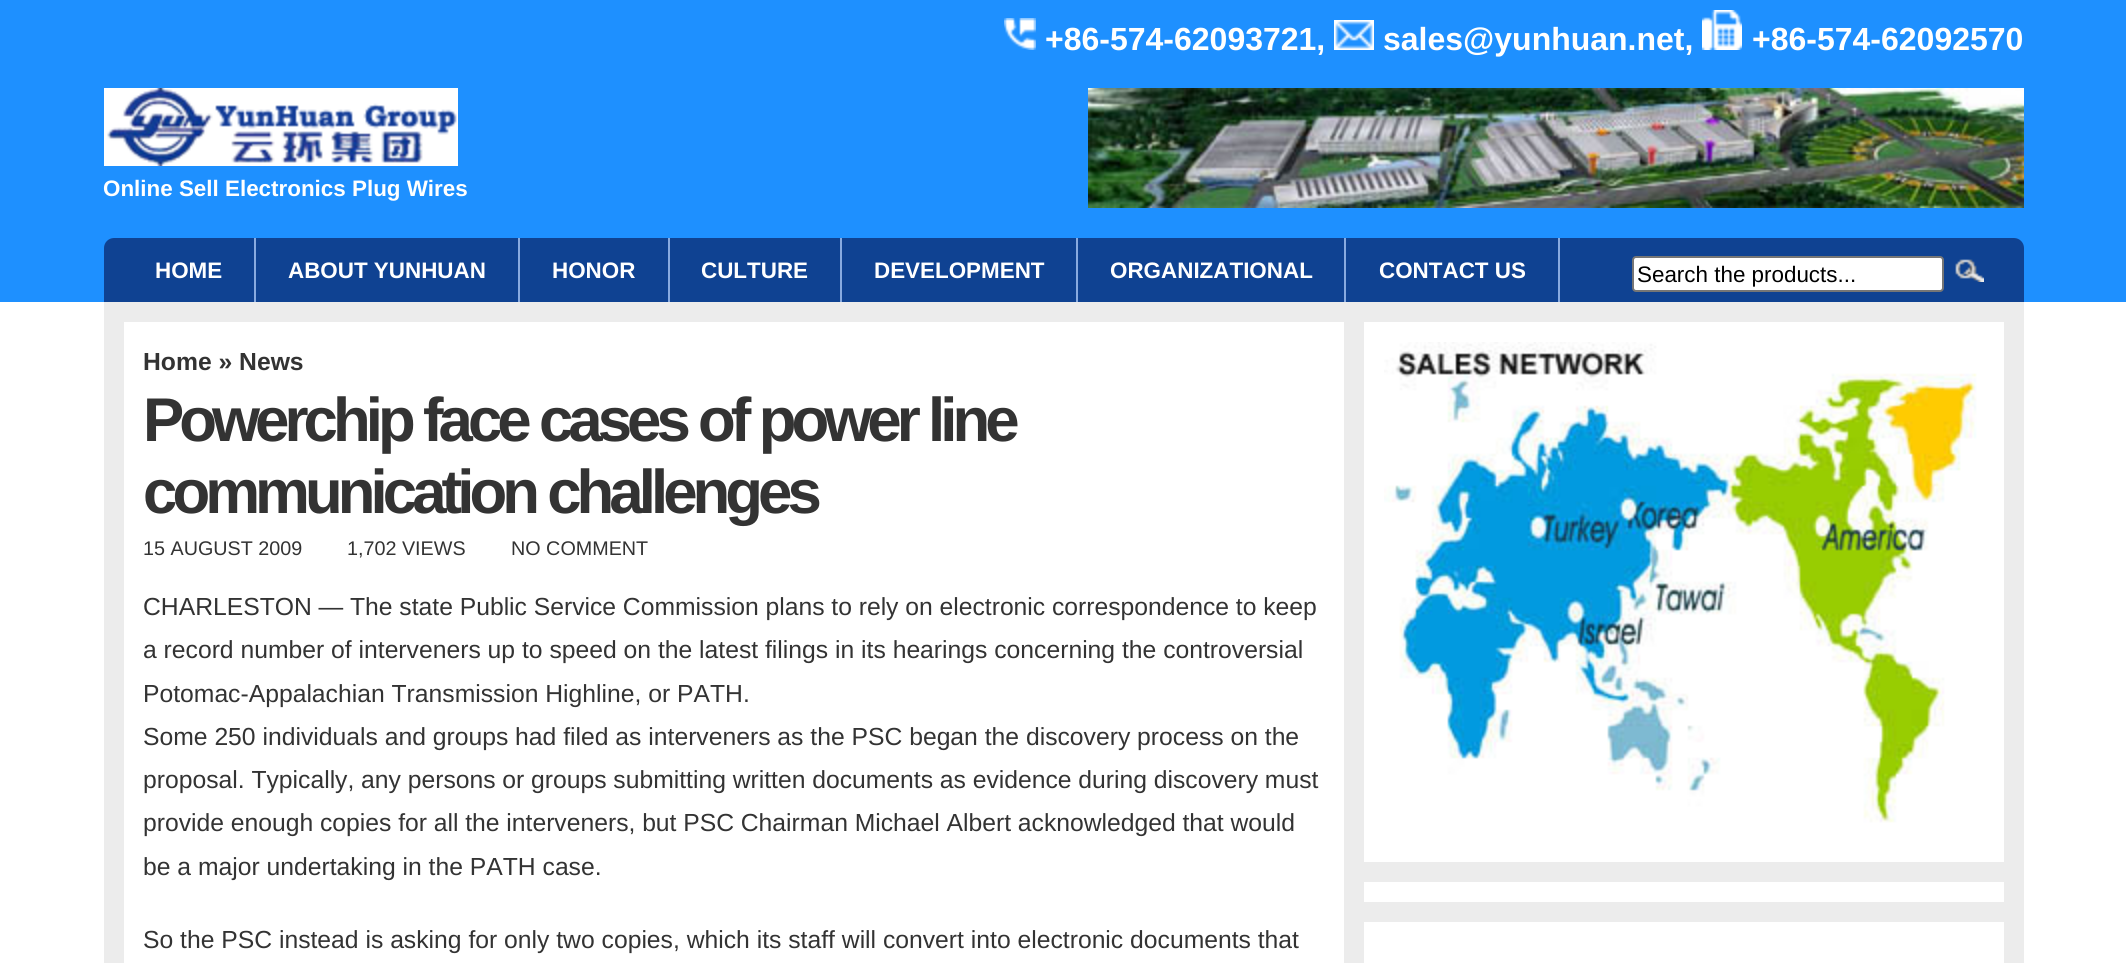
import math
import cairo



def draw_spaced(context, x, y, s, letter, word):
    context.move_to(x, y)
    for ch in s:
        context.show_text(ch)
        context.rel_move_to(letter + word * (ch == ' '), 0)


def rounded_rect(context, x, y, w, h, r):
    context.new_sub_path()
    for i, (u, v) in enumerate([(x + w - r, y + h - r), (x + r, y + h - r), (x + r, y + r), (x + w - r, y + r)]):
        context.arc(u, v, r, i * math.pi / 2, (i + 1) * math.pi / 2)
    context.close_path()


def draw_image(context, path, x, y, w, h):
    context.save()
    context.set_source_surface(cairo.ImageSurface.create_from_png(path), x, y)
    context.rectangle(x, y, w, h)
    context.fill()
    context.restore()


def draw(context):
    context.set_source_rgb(1, 1, 1)
    context.paint()
    context.set_source_rgb(30 / 255, 144 / 255, 1)
    context.rectangle(0, 0, 2126, 302)
    context.fill()
    draw_image(context, "images/1.png", 1004, 18, 32, 32)
    draw_image(context, "images/2.png", 1334, 20, 40, 30)
    draw_image(context, "images/3.png", 1702, 10, 40, 40)
    draw_image(context, "images/4.png", 104, 88, 354, 78)
    draw_image(context, "images/5.png", 1088, 88, 936, 120)
    context.set_source_rgb(15 / 255, 66 / 255, 146 / 255)
    context.new_path()
    context.move_to(114, 238)
    context.line_to(2014, 238)
    context.curve_to(2019.5, 238, 2024, 242.5, 2024, 248)
    context.line_to(2024, 302)
    context.line_to(104, 302)
    context.line_to(104, 248)
    context.curve_to(104, 242.5, 108.5, 238, 114, 238)
    context.close_path()
    context.fill()
    context.set_source_rgb(136 / 255, 170 / 255, 223 / 255)
    context.rectangle(254, 238, 2, 64)
    context.fill()
    context.rectangle(518, 238, 2, 64)
    context.fill()
    context.rectangle(668, 238, 2, 64)
    context.fill()
    context.rectangle(840, 238, 2, 64)
    context.fill()
    context.rectangle(1076, 238, 2, 64)
    context.fill()
    context.rectangle(1344, 238, 2, 64)
    context.fill()
    context.rectangle(1558, 238, 2, 64)
    context.fill()
    context.set_source_rgb(1, 1, 1)
    rounded_rect(context, 1633, 257, 310, 34, 3)
    context.fill_preserve()
    context.set_source_rgb(118 / 255, 118 / 255, 118 / 255)
    context.stroke()
    draw_image(context, "images/6.png", 1955, 259, 29, 23)
    context.set_source_rgb(236 / 255, 236 / 255, 236 / 255)
    context.rectangle(104, 302, 1920, 661)
    context.fill()
    context.set_source_rgb(1, 1, 1)
    context.rectangle(124, 322, 1220, 641)
    context.fill()
    context.rectangle(1364, 322, 640, 540)
    context.fill()
    draw_image(context, "images/7.png", 1384, 342, 593, 481)
    context.rectangle(1364, 882, 640, 20)
    context.fill()
    context.rectangle(1364, 922, 640, 41)
    context.fill()
    context.select_font_face("Liberation Sans", cairo.FontSlant.NORMAL, cairo.FontWeight.BOLD)
    context.set_font_size(32)
    context.move_to(1045, 50)
    context.show_text("+86-574-62093721,")
    context.move_to(1383, 50)
    context.show_text("sales@yunhuan.net,")
    context.move_to(1752, 50)
    context.show_text("+86-574-62092570")
    context.set_font_size(22.4)
    context.move_to(103, 196)
    context.show_text("Online Sell Electronics Plug Wires")
    context.move_to(155, 278)
    context.show_text("HOME")
    context.move_to(288, 278)
    context.show_text("ABOUT YUNHUAN")
    context.move_to(552, 278)
    context.show_text("HONOR")
    context.move_to(701, 278)
    context.show_text("CULTURE")
    context.move_to(874, 278)
    context.show_text("DEVELOPMENT")
    context.move_to(1110, 278)
    context.show_text("ORGANIZATIONAL")
    context.move_to(1379, 278)
    context.show_text("CONTACT US")
    context.select_font_face("Liberation Sans")
    context.set_source_rgb(0, 0, 0)
    context.move_to(1637, 282)
    context.show_text("Search the products...")
    context.select_font_face("Liberation Sans", cairo.FontSlant.NORMAL, cairo.FontWeight.BOLD)
    context.set_font_size(24.7)
    context.set_source_rgb(51 / 255, 51 / 255, 51 / 255)
    context.move_to(143, 370)
    context.show_text("Home » News")
    context.set_font_size(61.75)
    draw_spaced(context, 143, 441, "Powerchip face cases of power line", -4.95, 0)
    draw_spaced(context, 143, 513, "communication challenges", -4.95, 0)
    context.select_font_face("Liberation Sans")
    context.set_font_size(19.75)
    context.move_to(143, 555)
    context.show_text("15 AUGUST 2009")
    context.move_to(347, 555)
    context.show_text("1,702 VIEWS")
    context.move_to(511, 555)
    context.show_text("NO COMMENT")
    context.set_font_size(24.7)
    draw_spaced(context, 143, 615, "CHARLESTON — The state Public Service Commission plans to rely on electronic correspondence to keep", 0, -0.1)
    context.move_to(143, 658)
    context.show_text("a record number of interveners up to speed on the latest filings in its hearings concerning the controversial")
    context.move_to(143, 702)
    context.show_text("Potomac-Appalachian Transmission Highline, or PATH.")
    context.move_to(143, 745)
    context.show_text("Some 250 individuals and groups had filed as interveners as the PSC began the discovery process on the")
    draw_spaced(context, 143, 788, "proposal. Typically, any persons or groups submitting written documents as evidence during discovery must", 0, -0.1)
    draw_spaced(context, 143, 831, "provide enough copies for all the interveners, but PSC Chairman Michael Albert acknowledged that would", 0, -0.1)
    context.move_to(143, 875)
    context.show_text("be a major undertaking in the PATH case.")
    context.move_to(143, 948)
    context.show_text("So the PSC instead is asking for only two copies, which its staff will convert into electronic documents that")


surface = cairo.ImageSurface(cairo.Format.RGB24, 2126, 963)
context = cairo.Context(surface)
options = cairo.FontOptions()
options.set_hint_metrics(cairo.HintMetrics.OFF)
options.set_hint_style(cairo.HintStyle.NONE)
context.set_font_options(options)
context.set_miter_limit(4)
draw(context)
surface.write_to_png("out.png")
